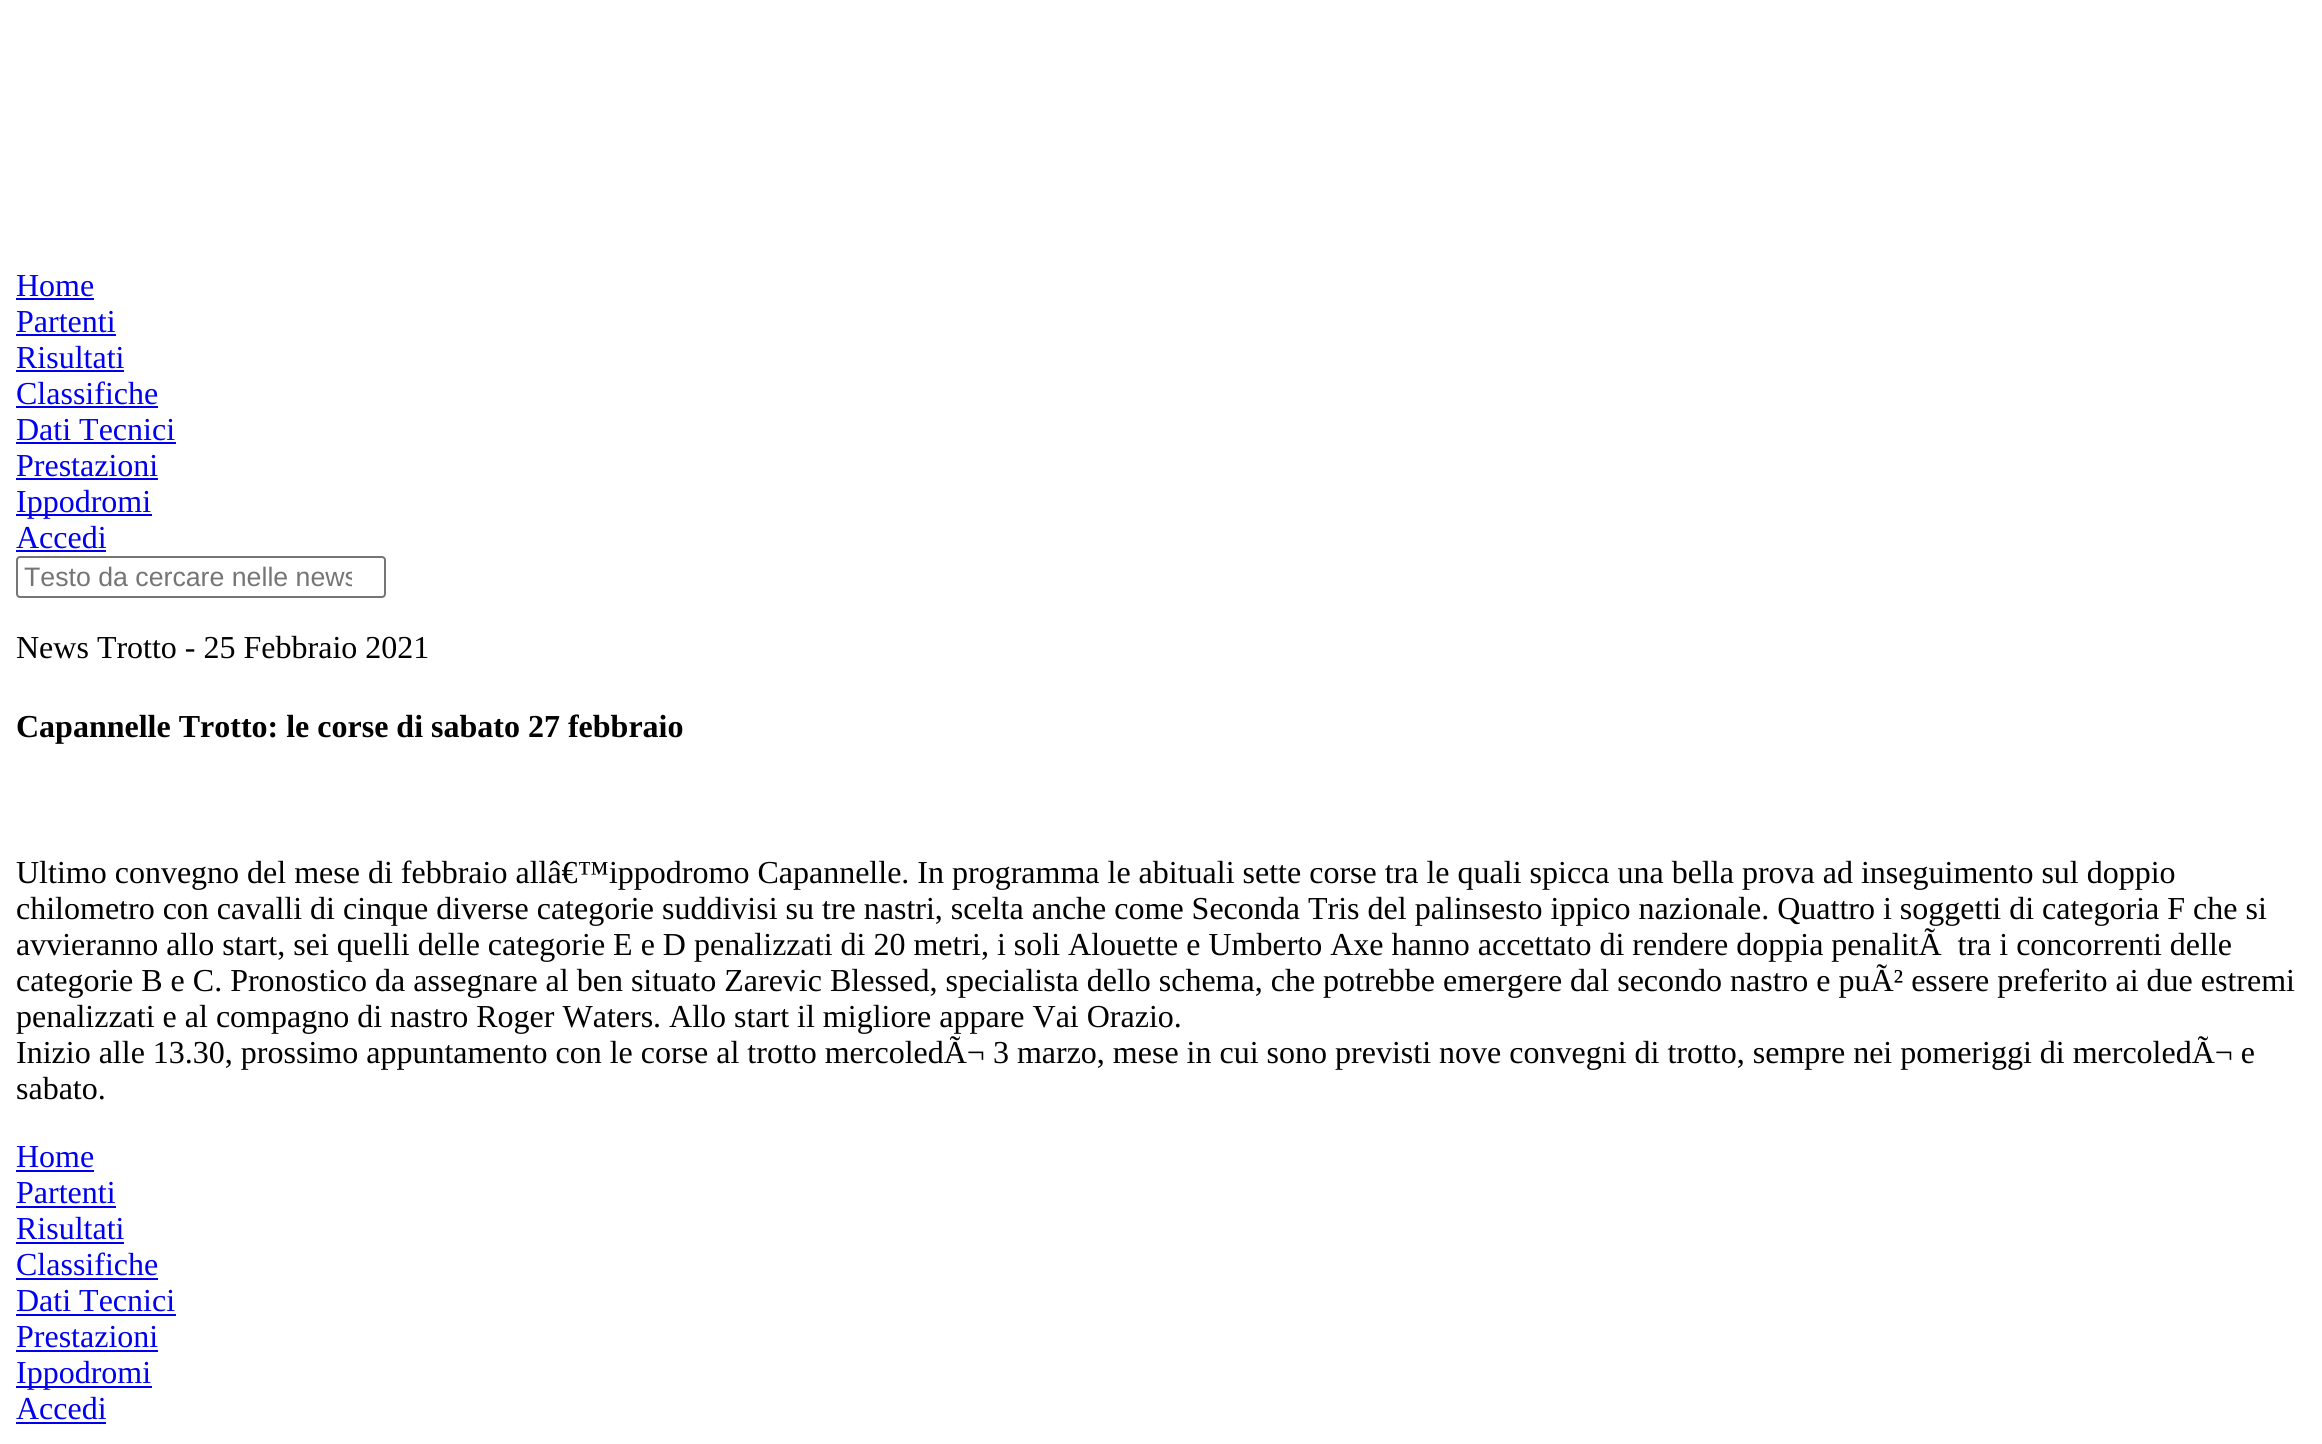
import math
import cairo



def rounded_rect(context, x, y, w, h, r):
    context.new_sub_path()
    for i, (u, v) in enumerate([(x + w - r, y + h - r), (x + r, y + h - r), (x + r, y + r), (x + w - r, y + r)]):
        context.arc(u, v, r, i * math.pi / 2, (i + 1) * math.pi / 2)
    context.close_path()


def draw(context):
    context.set_source_rgb(1, 1, 1)
    context.paint()
    context.set_source_rgb(0, 0, 238 / 255)
    context.rectangle(16, 298, 78, 2)
    context.fill()
    context.rectangle(16, 334, 100, 2)
    context.fill()
    context.rectangle(16, 370, 108, 2)
    context.fill()
    context.rectangle(16, 406, 142, 2)
    context.fill()
    context.rectangle(16, 442, 160, 2)
    context.fill()
    context.rectangle(16, 478, 142, 2)
    context.fill()
    context.rectangle(16, 514, 136, 2)
    context.fill()
    context.rectangle(16, 550, 90, 2)
    context.fill()
    rounded_rect(context, 17, 557, 368, 40, 3)
    context.set_source_rgb(118 / 255, 118 / 255, 118 / 255)
    context.stroke()
    context.set_source_rgb(0, 0, 238 / 255)
    context.rectangle(16, 1170, 78, 2)
    context.fill()
    context.rectangle(16, 1206, 100, 2)
    context.fill()
    context.rectangle(16, 1242, 108, 2)
    context.fill()
    context.rectangle(16, 1278, 142, 2)
    context.fill()
    context.rectangle(16, 1314, 160, 2)
    context.fill()
    context.rectangle(16, 1350, 142, 2)
    context.fill()
    context.rectangle(16, 1386, 136, 2)
    context.fill()
    context.rectangle(16, 1422, 90, 2)
    context.fill()
    context.select_font_face("Liberation Serif")
    context.set_font_size(32)
    context.move_to(16, 296)
    context.show_text("Home")
    context.move_to(16, 332)
    context.show_text("Partenti")
    context.move_to(16, 368)
    context.show_text("Risultati")
    context.move_to(16, 404)
    context.show_text("Classifiche")
    context.move_to(16, 440)
    context.show_text("Dati Tecnici")
    context.move_to(16, 476)
    context.show_text("Prestazioni")
    context.move_to(16, 512)
    context.show_text("Ippodromi")
    context.move_to(16, 548)
    context.show_text("Accedi")
    context.save()
    context.rectangle(24, 562, 328, 30)
    context.clip()
    context.select_font_face("Liberation Sans")
    context.set_font_size(26.7)
    context.set_source_rgb(117 / 255, 117 / 255, 117 / 255)
    context.move_to(24, 586)
    context.show_text("Testo da cercare nelle news")
    context.restore()
    context.set_source_rgb(0, 0, 0)
    context.move_to(16, 658)
    context.show_text("News Trotto - 25 Febbraio 2021")
    context.select_font_face("Liberation Serif", cairo.FontSlant.NORMAL, cairo.FontWeight.BOLD)
    context.move_to(16, 737)
    context.show_text("Capannelle Trotto: le corse di sabato 27 febbraio")
    context.select_font_face("Liberation Serif")
    context.move_to(16, 883)
    context.show_text("Ultimo convegno del mese di febbraio allâ€™ippodromo Capannelle. In programma le abituali sette corse tra le quali spicca una bella prova ad inseguimento sul doppio")
    context.move_to(16, 919)
    context.show_text("chilometro con cavalli di cinque diverse categorie suddivisi su tre nastri, scelta anche come Seconda Tris del palinsesto ippico nazionale. Quattro i soggetti di categoria F che si")
    context.move_to(16, 955)
    context.show_text("avvieranno allo start, sei quelli delle categorie E e D penalizzati di 20 metri, i soli Alouette e Umberto Axe hanno accettato di rendere doppia penalitÃ  tra i concorrenti delle")
    context.move_to(16, 991)
    context.show_text("categorie B e C. Pronostico da assegnare al ben situato Zarevic Blessed, specialista dello schema, che potrebbe emergere dal secondo nastro e puÃ² essere preferito ai due estremi")
    context.move_to(16, 1027)
    context.show_text("penalizzati e al compagno di nastro Roger Waters. Allo start il migliore appare Vai Orazio.")
    context.move_to(16, 1063)
    context.show_text("Inizio alle 13.30, prossimo appuntamento con le corse al trotto mercoledÃ¬ 3 marzo, mese in cui sono previsti nove convegni di trotto, sempre nei pomeriggi di mercoledÃ¬ e")
    context.move_to(16, 1099)
    context.show_text("sabato.")
    context.set_source_rgb(0, 0, 238 / 255)
    context.move_to(16, 1167)
    context.show_text("Home")
    context.move_to(16, 1203)
    context.show_text("Partenti")
    context.move_to(16, 1239)
    context.show_text("Risultati")
    context.move_to(16, 1275)
    context.show_text("Classifiche")
    context.move_to(16, 1311)
    context.show_text("Dati Tecnici")
    context.move_to(16, 1347)
    context.show_text("Prestazioni")
    context.move_to(16, 1383)
    context.show_text("Ippodromi")
    context.move_to(16, 1419)
    context.show_text("Accedi")


surface = cairo.ImageSurface(cairo.Format.RGB24, 2322, 1444)
context = cairo.Context(surface)
options = cairo.FontOptions()
options.set_hint_metrics(cairo.HintMetrics.OFF)
options.set_hint_style(cairo.HintStyle.NONE)
context.set_font_options(options)
context.set_miter_limit(4)
draw(context)
surface.write_to_png("out.png")
